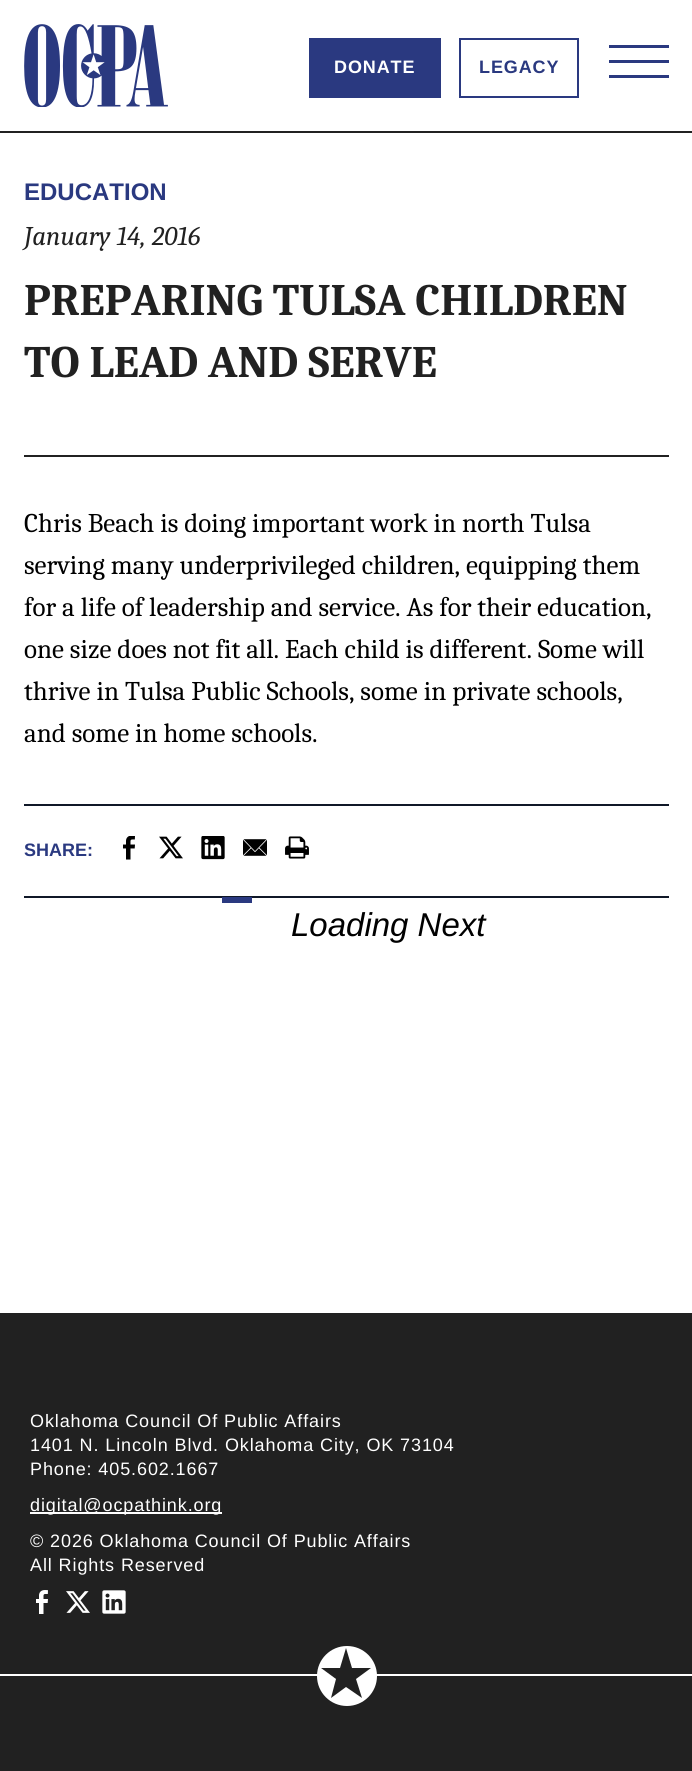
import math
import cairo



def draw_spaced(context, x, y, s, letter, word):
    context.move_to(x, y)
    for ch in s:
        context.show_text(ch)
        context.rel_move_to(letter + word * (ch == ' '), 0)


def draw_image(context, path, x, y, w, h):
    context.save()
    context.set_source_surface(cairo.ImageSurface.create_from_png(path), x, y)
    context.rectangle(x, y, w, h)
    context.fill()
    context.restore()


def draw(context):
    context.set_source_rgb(1, 1, 1)
    context.paint()
    context.set_source_rgb(33 / 255, 33 / 255, 33 / 255)
    context.rectangle(0, 131, 692, 2)
    context.fill()
    draw_image(context, "images/1.png", 24, 24, 144, 83)
    context.set_source_rgb(42 / 255, 57 / 255, 128 / 255)
    context.rectangle(309, 38, 132, 60)
    context.fill()
    context.rectangle(460, 39, 118, 58)
    context.stroke()
    context.rectangle(609, 45, 60, 3)
    context.fill()
    context.rectangle(609, 60, 60, 3)
    context.fill()
    context.rectangle(609, 75, 60, 3)
    context.fill()
    context.set_source_rgb(33 / 255, 33 / 255, 33 / 255)
    context.rectangle(24, 455, 645, 2)
    context.fill()
    context.set_source_rgb(16 / 255, 24 / 255, 40 / 255)
    context.rectangle(24, 804, 645, 2)
    context.fill()
    context.rectangle(24, 896, 645, 2)
    context.fill()
    draw_image(context, "images/2.png", 123, 836, 12, 24)
    draw_image(context, "images/3.png", 159, 836, 24, 23)
    draw_image(context, "images/4.png", 201, 836, 24, 24)
    draw_image(context, "images/5.png", 243, 839, 24, 17)
    draw_image(context, "images/6.png", 285, 836, 24, 23)
    context.set_source_rgb(42 / 255, 57 / 255, 128 / 255)
    context.rectangle(222, 897, 30, 6)
    context.fill()
    context.set_source_rgb(33 / 255, 33 / 255, 33 / 255)
    context.rectangle(0, 1313, 692, 458)
    context.fill()
    context.set_source_rgb(1, 1, 1)
    context.rectangle(30, 1512, 192, 2)
    context.fill()
    draw_image(context, "images/7.png", 36, 1590, 12, 24)
    draw_image(context, "images/8.png", 66, 1591, 24, 22)
    draw_image(context, "images/9.png", 102, 1590, 24, 24)
    context.rectangle(0, 1674, 692, 2)
    context.fill()
    context.arc(347, 1676, 30, 0, 2 * math.pi)
    context.fill()
    context.set_source_rgb(33 / 255, 33 / 255, 33 / 255)
    context.new_path()
    context.move_to(331, 1698)
    context.line_to(346, 1687)
    context.line_to(362, 1698)
    context.line_to(356, 1679)
    context.line_to(371, 1668)
    context.line_to(352, 1668)
    context.line_to(346, 1648)
    context.line_to(340, 1668)
    context.line_to(321, 1668)
    context.line_to(336, 1679)
    context.close_path()
    context.fill()
    context.select_font_face("Liberation Sans", cairo.FontSlant.NORMAL, cairo.FontWeight.BOLD)
    context.set_font_size(18)
    context.set_source_rgb(1, 1, 1)
    draw_spaced(context, 334, 73, "DONATE", 0.9, 0)
    context.set_source_rgb(42 / 255, 57 / 255, 128 / 255)
    draw_spaced(context, 479, 73, "LEGACY", 0.9, 0)
    context.set_font_size(24)
    context.move_to(24, 200)
    context.show_text("EDUCATION")
    context.select_font_face("Caladea", cairo.FontSlant.ITALIC)
    context.set_font_size(27)
    context.set_source_rgb(33 / 255, 33 / 255, 33 / 255)
    context.move_to(24, 245)
    context.show_text("January 14, 2016")
    context.select_font_face("Caladea", cairo.FontSlant.NORMAL, cairo.FontWeight.BOLD)
    context.set_font_size(45)
    context.move_to(24, 315)
    context.show_text("PREPARING TULSA CHILDREN")
    context.move_to(24, 377)
    context.show_text("TO LEAD AND SERVE")
    context.select_font_face("Caladea")
    context.set_font_size(27)
    context.set_source_rgb(0, 0, 0)
    context.move_to(24, 532)
    context.show_text("Chris Beach is doing important work in north Tulsa")
    context.move_to(24, 574)
    context.show_text("serving many underprivileged children, equipping them")
    context.move_to(24, 616)
    context.show_text("for a life of leadership and service. As for their education,")
    context.move_to(24, 658)
    context.show_text("one size does not fit all. Each child is different. Some will")
    context.move_to(24, 700)
    context.show_text("thrive in Tulsa Public Schools, some in private schools,")
    context.move_to(24, 742)
    context.show_text("and some in home schools.")
    context.select_font_face("Liberation Sans", cairo.FontSlant.NORMAL, cairo.FontWeight.BOLD)
    context.set_font_size(18)
    context.set_source_rgb(42 / 255, 57 / 255, 128 / 255)
    context.move_to(24, 856)
    context.show_text("SHARE:")
    context.select_font_face("Liberation Sans", cairo.FontSlant.ITALIC)
    context.set_font_size(33)
    context.set_source_rgb(0, 0, 0)
    context.move_to(291, 936)
    context.show_text("Loading Next")
    context.select_font_face("Liberation Sans")
    context.set_font_size(18)
    context.set_source_rgb(1, 1, 1)
    draw_spaced(context, 30, 1427, "Oklahoma Council Of Public Affairs", 0.9, 0)
    draw_spaced(context, 30, 1451, "1401 N. Lincoln Blvd. Oklahoma City, OK 73104", 0.9, 0)
    draw_spaced(context, 30, 1475, "Phone: 405.602.1667", 0.9, 0)
    draw_spaced(context, 30, 1511, "digital@ocpathink.org", 0.9, 0)
    draw_spaced(context, 30, 1547, "© 2026 Oklahoma Council Of Public Affairs", 0.9, 0)
    draw_spaced(context, 30, 1571, "All Rights Reserved", 0.9, 0)


surface = cairo.ImageSurface(cairo.Format.RGB24, 692, 1771)
context = cairo.Context(surface)
options = cairo.FontOptions()
options.set_hint_metrics(cairo.HintMetrics.OFF)
options.set_hint_style(cairo.HintStyle.NONE)
context.set_font_options(options)
context.set_miter_limit(4)
draw(context)
surface.write_to_png("out.png")
